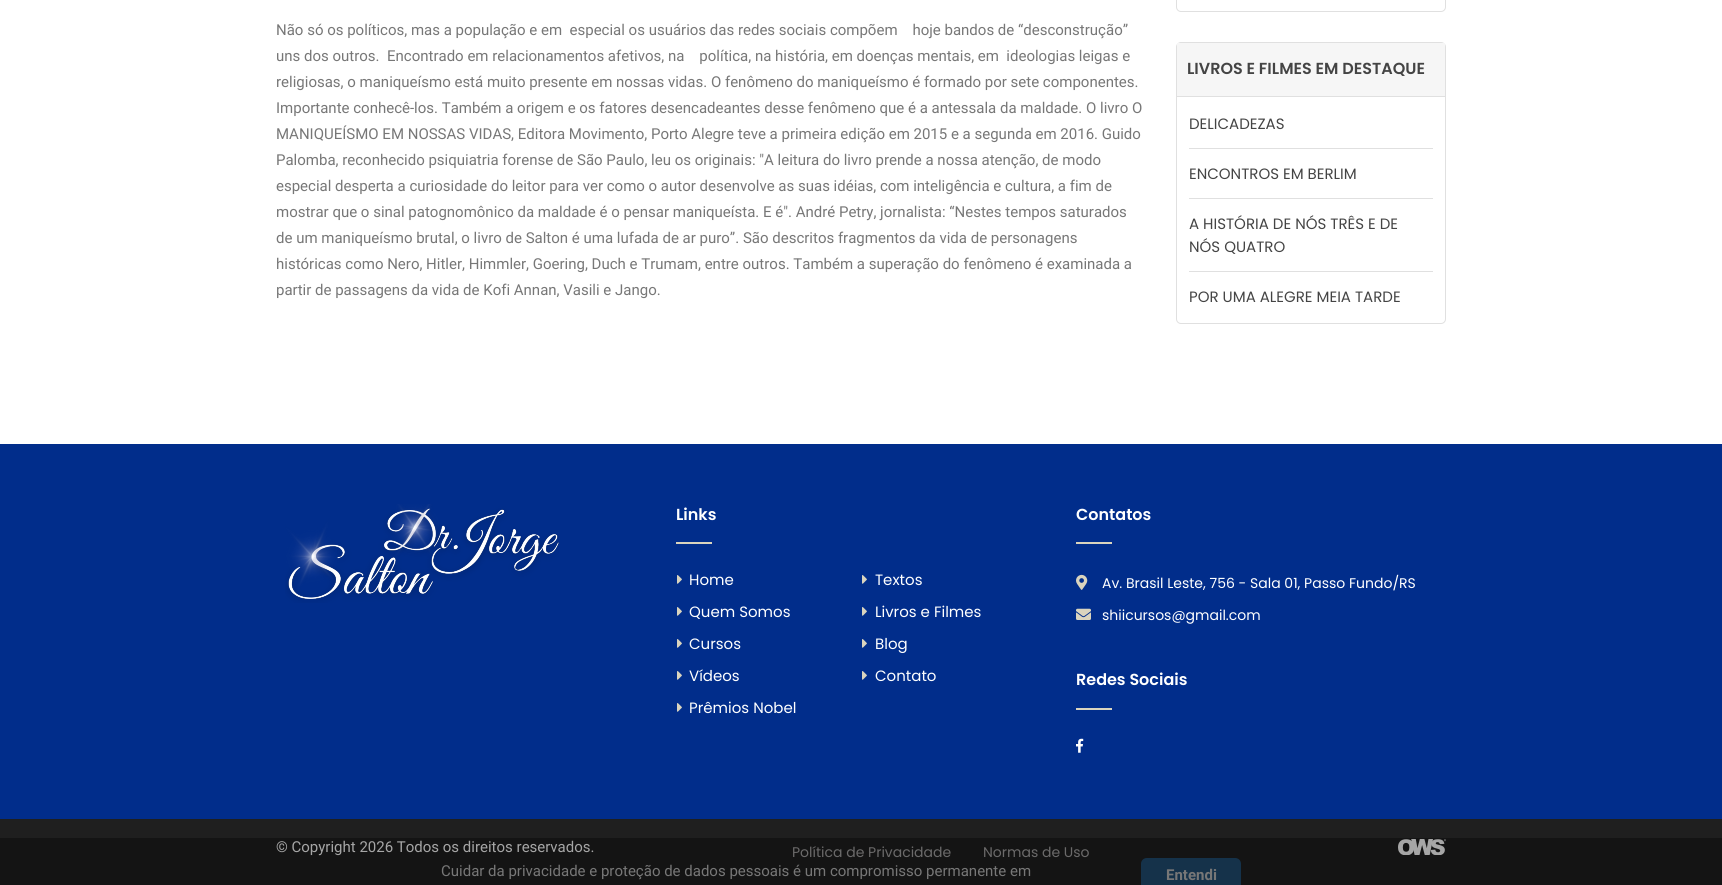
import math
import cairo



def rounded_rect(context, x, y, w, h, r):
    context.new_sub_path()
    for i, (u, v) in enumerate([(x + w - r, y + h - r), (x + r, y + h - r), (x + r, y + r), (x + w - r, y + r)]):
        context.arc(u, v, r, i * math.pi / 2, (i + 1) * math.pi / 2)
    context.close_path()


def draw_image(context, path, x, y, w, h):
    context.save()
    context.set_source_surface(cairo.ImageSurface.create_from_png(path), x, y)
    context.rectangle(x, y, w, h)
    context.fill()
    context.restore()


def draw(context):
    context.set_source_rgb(1, 1, 1)
    context.paint()
    rounded_rect(context, 1176.5, -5.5, 269, 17, 4.5)
    context.set_source_rgb(224 / 255, 224 / 255, 224 / 255)
    context.set_line_width(1)
    context.stroke()
    rounded_rect(context, 1176.5, 42.5, 269, 281, 4.5)
    context.stroke()
    context.set_source_rgb(246 / 255, 246 / 255, 246 / 255)
    context.rectangle(1177, 43, 268, 53)
    context.fill()
    context.set_source_rgb(224 / 255, 224 / 255, 224 / 255)
    context.rectangle(1177, 96, 268, 1)
    context.fill()
    context.rectangle(1189, 148, 244, 1)
    context.fill()
    context.rectangle(1189, 198, 244, 1)
    context.fill()
    context.rectangle(1189, 271, 244, 1)
    context.fill()
    context.set_source_rgb(1 / 255, 45 / 255, 139 / 255)
    context.rectangle(0, 444, 1722, 375)
    context.fill()
    draw_image(context, "images/1.png", 285, 504, 274, 99)
    context.set_source_rgb(218 / 255, 212 / 255, 190 / 255)
    context.rectangle(676, 542, 36, 2)
    context.fill()
    draw_image(context, "images/2.png", 677, 575, 5, 9)
    draw_image(context, "images/2.png", 677, 607, 5, 9)
    draw_image(context, "images/2.png", 677, 639, 5, 9)
    draw_image(context, "images/2.png", 677, 671, 5, 9)
    draw_image(context, "images/2.png", 677, 703, 5, 9)
    draw_image(context, "images/2.png", 862, 575, 5, 9)
    draw_image(context, "images/2.png", 862, 607, 5, 9)
    draw_image(context, "images/2.png", 862, 639, 5, 9)
    draw_image(context, "images/2.png", 862, 671, 5, 9)
    context.rectangle(1076, 542, 36, 2)
    context.fill()
    draw_image(context, "images/3.png", 1076, 574, 12, 16)
    draw_image(context, "images/4.png", 1076, 608, 15, 12)
    context.rectangle(1076, 708, 36, 2)
    context.fill()
    draw_image(context, "images/5.png", 1076, 738, 8, 15)
    context.set_source_rgb(31 / 255, 31 / 255, 31 / 255)
    context.rectangle(0, 819, 1722, 19)
    context.fill()
    context.set_source_rgb(20 / 255, 20 / 255, 20 / 255)
    context.rectangle(0, 838, 1722, 47)
    context.fill()
    draw_image(context, "images/6.png", 1398, 839, 48, 16)
    context.set_source_rgb(21 / 255, 50 / 255, 74 / 255)
    context.new_path()
    context.move_to(1147, 858)
    context.line_to(1235, 858)
    context.curve_to(1238.5, 858, 1241, 860.5, 1241, 864)
    context.line_to(1241, 885)
    context.line_to(1141, 885)
    context.line_to(1141, 864)
    context.curve_to(1141, 860.5, 1143.5, 858, 1147, 858)
    context.close_path()
    context.fill()
    context.select_font_face("Roboto")
    context.set_font_size(15)
    context.set_source_rgb(119 / 255, 119 / 255, 119 / 255)
    context.move_to(276, 35)
    context.show_text("Não só os políticos, mas a população e em  especial os usuários das redes sociais compõem    hoje bandos de “desconstrução”")
    context.move_to(276, 61)
    context.show_text("uns dos outros.  Encontrado em relacionamentos afetivos, na    política, na história, em doenças mentais, em  ideologias leigas e")
    context.move_to(276, 87)
    context.show_text("religiosas, o maniqueísmo está muito presente em nossas vidas. O fenômeno do maniqueísmo é formado por sete componentes.")
    context.move_to(276, 113)
    context.show_text("Importante conhecê-los. Também a origem e os fatores desencadeantes desse fenômeno que é a antessala da maldade. O livro O")
    context.move_to(276, 139)
    context.show_text("MANIQUEÍSMO EM NOSSAS VIDAS, Editora Movimento, Porto Alegre teve a primeira edição em 2015 e a segunda em 2016. Guido")
    context.move_to(276, 165)
    context.show_text("Palomba, reconhecido psiquiatria forense de São Paulo, leu os originais: \"A leitura do livro prende a nossa atenção, de modo")
    context.move_to(276, 191)
    context.show_text("especial desperta a curiosidade do leitor para ver como o autor desenvolve as suas idéias, com inteligência e cultura, a fim de")
    context.move_to(276, 217)
    context.show_text("mostrar que o sinal patognomônico da maldade é o pensar maniqueísta. E é\". André Petry, jornalista: “Nestes tempos saturados")
    context.move_to(276, 243)
    context.show_text("de um maniqueísmo brutal, o livro de Salton é uma lufada de ar puro”. São descritos fragmentos da vida de personagens")
    context.move_to(276, 269)
    context.show_text("históricas como Nero, Hitler, Himmler, Goering, Duch e Trumam, entre outros. Também a superação do fenômeno é examinada a")
    context.move_to(276, 295)
    context.show_text("partir de passagens da vida de Kofi Annan, Vasili e Jango.")
    context.select_font_face("Poppins SemiBold")
    context.set_font_size(16)
    context.set_source_rgb(68 / 255, 68 / 255, 68 / 255)
    context.move_to(1187, 74)
    context.show_text("LIVROS E FILMES EM DESTAQUE")
    context.select_font_face("Poppins")
    context.set_font_size(15)
    context.move_to(1189, 129)
    context.show_text("DELICADEZAS")
    context.move_to(1189, 179)
    context.show_text("ENCONTROS EM BERLIM")
    context.move_to(1189, 229)
    context.show_text("A HISTÓRIA DE NÓS TRÊS E DE")
    context.move_to(1189, 252)
    context.show_text("NÓS QUATRO")
    context.move_to(1189, 302)
    context.show_text("POR UMA ALEGRE MEIA TARDE")
    context.select_font_face("Poppins SemiBold")
    context.set_font_size(16)
    context.set_source_rgb(1, 1, 1)
    context.move_to(676, 520)
    context.show_text("Links")
    context.select_font_face("Poppins")
    context.set_font_size(15)
    context.move_to(689, 585)
    context.show_text("Home")
    context.move_to(689, 617)
    context.show_text("Quem Somos")
    context.move_to(689, 649)
    context.show_text("Cursos")
    context.move_to(689, 681)
    context.show_text("Vídeos")
    context.move_to(689, 713)
    context.show_text("Prêmios Nobel")
    context.move_to(875, 585)
    context.show_text("Textos")
    context.move_to(875, 617)
    context.show_text("Livros e Filmes")
    context.move_to(875, 649)
    context.show_text("Blog")
    context.move_to(875, 681)
    context.show_text("Contato")
    context.select_font_face("Poppins SemiBold")
    context.set_font_size(16)
    context.move_to(1076, 520)
    context.show_text("Contatos")
    context.select_font_face("Poppins")
    context.set_font_size(14)
    context.move_to(1102, 588)
    context.show_text("Av. Brasil Leste, 756 - Sala 01, Passo Fundo/RS")
    context.move_to(1102, 620)
    context.show_text("shiicursos@gmail.com")
    context.select_font_face("Poppins SemiBold")
    context.set_font_size(16)
    context.move_to(1076, 685)
    context.show_text("Redes Sociais")
    context.select_font_face("Roboto")
    context.set_font_size(15)
    context.set_source_rgb(166 / 255, 166 / 255, 166 / 255)
    context.move_to(276, 852)
    context.show_text("© Copyright 2026 Todos os direitos reservados.")
    context.select_font_face("Poppins")
    context.set_font_size(14)
    context.set_source_rgb(107 / 255, 106 / 255, 106 / 255)
    context.move_to(792, 857)
    context.show_text("Política de Privacidade")
    context.move_to(983, 857)
    context.show_text("Normas de Uso")
    context.select_font_face("Roboto")
    context.set_font_size(15)
    context.set_source_rgb(119 / 255, 119 / 255, 119 / 255)
    context.move_to(441, 876)
    context.show_text("Cuidar da privacidade e proteção de dados pessoais é um compromisso permanente em")
    context.select_font_face("Roboto", cairo.FontSlant.NORMAL, cairo.FontWeight.BOLD)
    context.move_to(1166, 880)
    context.show_text("Entendi")


surface = cairo.ImageSurface(cairo.Format.RGB24, 1722, 885)
context = cairo.Context(surface)
options = cairo.FontOptions()
options.set_hint_metrics(cairo.HintMetrics.OFF)
options.set_hint_style(cairo.HintStyle.NONE)
context.set_font_options(options)
context.set_miter_limit(4)
draw(context)
surface.write_to_png("out.png")
